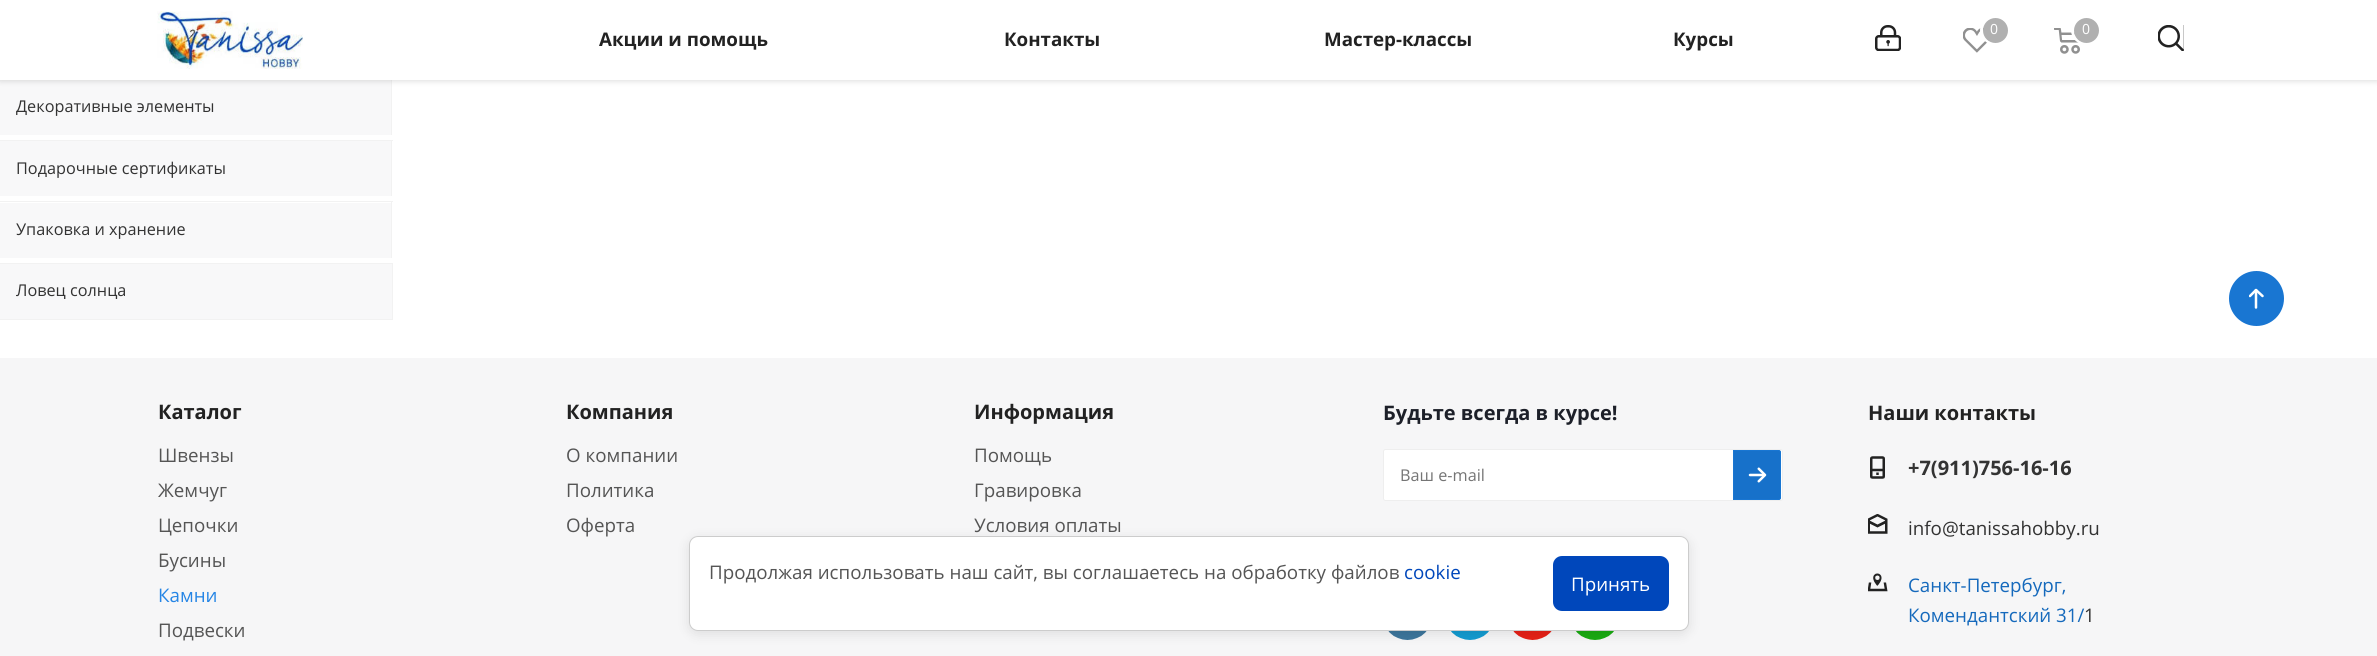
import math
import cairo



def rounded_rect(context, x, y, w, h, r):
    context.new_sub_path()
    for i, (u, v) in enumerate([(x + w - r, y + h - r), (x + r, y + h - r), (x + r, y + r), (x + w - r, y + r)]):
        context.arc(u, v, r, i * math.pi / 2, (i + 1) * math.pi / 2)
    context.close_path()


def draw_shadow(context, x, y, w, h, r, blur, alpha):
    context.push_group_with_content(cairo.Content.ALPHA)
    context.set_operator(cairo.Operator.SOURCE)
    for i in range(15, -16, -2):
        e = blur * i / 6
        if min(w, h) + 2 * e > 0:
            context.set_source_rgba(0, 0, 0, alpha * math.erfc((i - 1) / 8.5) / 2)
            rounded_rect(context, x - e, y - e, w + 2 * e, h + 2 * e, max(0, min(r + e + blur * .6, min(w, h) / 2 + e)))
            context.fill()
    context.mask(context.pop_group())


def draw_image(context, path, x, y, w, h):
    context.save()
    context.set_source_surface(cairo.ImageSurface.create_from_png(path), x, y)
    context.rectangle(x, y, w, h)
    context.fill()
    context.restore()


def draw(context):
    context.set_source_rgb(1, 1, 1)
    context.paint()
    context.set_source_rgb(248 / 255, 248 / 255, 249 / 255)
    context.rectangle(0, 80, 391, 55)
    context.fill()
    context.set_source_rgb(242 / 255, 242 / 255, 242 / 255)
    context.rectangle(391, 79, 1, 56)
    context.fill()
    context.set_source_rgb(0, 0, 0)
    draw_shadow(context, 0, 1, 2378, 80, 0, 3, 0.14)
    context.set_source_rgb(1, 1, 1)
    context.rectangle(0, 0, 2377, 80)
    context.fill()
    draw_image(context, "images/1.png", 157, 11, 146, 58)
    draw_image(context, "images/2.png", 1875, 25, 26, 26)
    draw_image(context, "images/3.png", 1963, 28, 26, 25)
    context.arc(1995, 30, 13.5, 0, 2 * math.pi)
    context.set_line_width(3)
    context.stroke()
    context.set_source_rgb(176 / 255, 176 / 255, 176 / 255)
    context.arc(1995.5, 30.5, 12.5, 0, 2 * math.pi)
    context.fill()
    draw_image(context, "images/4.png", 2054, 28, 26, 26)
    context.arc(2086, 30, 13.5, 0, 2 * math.pi)
    context.set_source_rgb(1, 1, 1)
    context.stroke()
    context.set_source_rgb(176 / 255, 176 / 255, 176 / 255)
    context.arc(2086.5, 30.5, 12.5, 0, 2 * math.pi)
    context.fill()
    context.set_source_rgb(34 / 255, 34 / 255, 34 / 255)
    context.rectangle(2158, 25, 26, 26)
    context.fill()
    draw_image(context, "images/5.png", 2158, 25, 26, 26)
    context.set_source_rgb(248 / 255, 248 / 255, 249 / 255)
    context.rectangle(0, 141, 391, 55)
    context.fill()
    context.set_source_rgb(242 / 255, 242 / 255, 242 / 255)
    context.rectangle(0, 140, 393, 1)
    context.fill()
    context.rectangle(391, 140, 1, 56)
    context.fill()
    context.set_source_rgb(248 / 255, 248 / 255, 249 / 255)
    context.rectangle(0, 203, 391, 55)
    context.fill()
    context.set_source_rgb(242 / 255, 242 / 255, 242 / 255)
    context.rectangle(0, 201, 393, 1)
    context.fill()
    context.rectangle(391, 201, 1, 57)
    context.fill()
    context.set_source_rgb(248 / 255, 248 / 255, 249 / 255)
    context.rectangle(-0.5, 263.5, 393, 56)
    context.fill_preserve()
    context.set_source_rgb(242 / 255, 242 / 255, 242 / 255)
    context.set_line_width(1)
    context.stroke()
    context.set_source_rgb(246 / 255, 246 / 255, 247 / 255)
    context.rectangle(0, 358, 2377, 298)
    context.fill()
    context.set_source_rgb(1, 1, 1)
    rounded_rect(context, 1383.5, 449.5, 399, 51, 2)
    context.fill_preserve()
    context.set_source_rgb(238 / 255, 238 / 255, 238 / 255)
    context.stroke()
    context.set_source_rgb(23 / 255, 113 / 255, 202 / 255)
    context.new_path()
    context.move_to(1733, 450)
    context.line_to(1778.5, 450)
    context.curve_to(1780, 450, 1781, 451, 1781, 452.5)
    context.line_to(1781, 497.5)
    context.curve_to(1781, 499, 1780, 500, 1778.5, 500)
    context.line_to(1733, 500)
    context.close_path()
    context.fill()
    draw_image(context, "images/6.png", 1748, 467, 19, 16)
    context.new_path()
    context.move_to(1733.5, 450.5)
    context.line_to(1778.5, 450.5)
    context.curve_to(1779.5, 450.5, 1780.5, 451.5, 1780.5, 452.5)
    context.line_to(1780.5, 497.5)
    context.curve_to(1780.5, 498.5, 1779.5, 499.5, 1778.5, 499.5)
    context.line_to(1733.5, 499.5)
    context.close_path()
    context.set_source_rgb(25 / 255, 118 / 255, 210 / 255)
    context.stroke()
    draw_image(context, "images/7.png", 1388, 631, 39, 9)
    draw_image(context, "images/8.png", 1451, 631, 38, 9)
    draw_image(context, "images/9.png", 1513, 631, 39, 9)
    draw_image(context, "images/10.png", 1576, 631, 38, 9)
    draw_image(context, "images/11.png", 1870, 456, 15, 23)
    draw_image(context, "images/12.png", 1868, 514, 20, 20)
    draw_image(context, "images/13.png", 1868, 573, 20, 19)
    context.set_source_rgb(0, 0, 0)
    draw_shadow(context, 689, 539, 1000, 95, 9, 6, 0.1)
    context.set_source_rgb(1, 1, 1)
    rounded_rect(context, 689.5, 536.5, 999, 94, 8.5)
    context.fill_preserve()
    context.set_source_rgb(204 / 255, 204 / 255, 204 / 255)
    context.stroke()
    context.set_source_rgb(0, 71 / 255, 187 / 255)
    rounded_rect(context, 1553, 556, 116, 55, 9)
    context.fill()
    context.set_source_rgb(25 / 255, 118 / 255, 210 / 255)
    context.arc(2256.5, 298.5, 27.5, 0, 2 * math.pi)
    context.fill()
    context.new_path()
    context.move_to(2256, 290)
    context.line_to(2256, 307.5)
    context.set_source_rgb(1, 1, 1)
    context.set_line_width(2.5)
    context.set_line_cap(cairo.LineCap.ROUND)
    context.set_line_join(cairo.LineJoin.ROUND)
    context.stroke()
    context.save()
    context.rectangle(2249, 289, 15, 125)
    context.clip()
    context.new_path()
    context.move_to(2250, 296)
    context.line_to(2256, 290)
    context.line_to(2262.5, 296)
    context.stroke()
    context.restore()
    context.select_font_face("Open Sans", cairo.FontSlant.NORMAL, cairo.FontWeight.BOLD)
    context.set_font_size(18.75)
    context.set_source_rgb(34 / 255, 34 / 255, 34 / 255)
    context.move_to(599, 46)
    context.show_text("Акции и помощь")
    context.move_to(1004, 46)
    context.show_text("Контакты")
    context.move_to(1324, 46)
    context.show_text("Мастер-классы")
    context.move_to(1673, 46)
    context.show_text("Курсы")
    context.select_font_face("Open Sans")
    context.set_font_size(14)
    context.set_source_rgb(1, 1, 1)
    context.move_to(1990, 34)
    context.show_text("0")
    context.move_to(2082, 34)
    context.show_text("0")
    context.set_font_size(16.25)
    context.set_source_rgb(51 / 255, 51 / 255, 51 / 255)
    context.move_to(16, 112)
    context.show_text("Декоративные элементы")
    context.move_to(16, 174)
    context.show_text("Подарочные сертификаты")
    context.move_to(16, 235)
    context.show_text("Упаковка и хранение")
    context.move_to(16, 296)
    context.show_text("Ловец солнца")
    context.select_font_face("Open Sans", cairo.FontSlant.NORMAL, cairo.FontWeight.BOLD)
    context.set_font_size(20)
    context.set_source_rgb(34 / 255, 34 / 255, 34 / 255)
    context.move_to(158, 419)
    context.show_text("Каталог")
    context.select_font_face("Open Sans")
    context.set_font_size(18.75)
    context.set_source_rgb(85 / 255, 85 / 255, 85 / 255)
    context.move_to(158, 462)
    context.show_text("Швензы")
    context.move_to(158, 497)
    context.show_text("Жемчуг")
    context.move_to(158, 532)
    context.show_text("Цепочки")
    context.move_to(158, 567)
    context.show_text("Бусины")
    context.set_source_rgb(37 / 255, 133 / 255, 229 / 255)
    context.move_to(158, 602)
    context.show_text("Камни")
    context.set_source_rgb(85 / 255, 85 / 255, 85 / 255)
    context.move_to(158, 637)
    context.show_text("Подвески")
    context.select_font_face("Open Sans", cairo.FontSlant.NORMAL, cairo.FontWeight.BOLD)
    context.set_font_size(20)
    context.set_source_rgb(34 / 255, 34 / 255, 34 / 255)
    context.move_to(566, 419)
    context.show_text("Компания")
    context.select_font_face("Open Sans")
    context.set_font_size(18.75)
    context.set_source_rgb(85 / 255, 85 / 255, 85 / 255)
    context.move_to(566, 462)
    context.show_text("О компании")
    context.move_to(566, 497)
    context.show_text("Политика")
    context.move_to(566, 532)
    context.show_text("Оферта")
    context.select_font_face("Open Sans", cairo.FontSlant.NORMAL, cairo.FontWeight.BOLD)
    context.set_font_size(20)
    context.set_source_rgb(34 / 255, 34 / 255, 34 / 255)
    context.move_to(974, 419)
    context.show_text("Информация")
    context.select_font_face("Open Sans")
    context.set_font_size(18.75)
    context.set_source_rgb(85 / 255, 85 / 255, 85 / 255)
    context.move_to(974, 462)
    context.show_text("Помощь")
    context.move_to(974, 497)
    context.show_text("Гравировка")
    context.move_to(974, 532)
    context.show_text("Условия оплаты")
    context.select_font_face("Open Sans", cairo.FontSlant.NORMAL, cairo.FontWeight.BOLD)
    context.set_font_size(20)
    context.set_source_rgb(29 / 255, 32 / 255, 41 / 255)
    context.move_to(1383, 420)
    context.show_text("Будьте всегда в курсе!")
    context.select_font_face("Open Sans")
    context.set_font_size(16.25)
    context.set_source_rgb(117 / 255, 117 / 255, 117 / 255)
    context.move_to(1400, 481)
    context.show_text("Ваш e-mail")
    context.select_font_face("Open Sans", cairo.FontSlant.NORMAL, cairo.FontWeight.BOLD)
    context.set_font_size(20)
    context.set_source_rgb(34 / 255, 34 / 255, 34 / 255)
    context.move_to(1868, 420)
    context.show_text("Наши контакты")
    context.set_source_rgb(51 / 255, 51 / 255, 51 / 255)
    context.move_to(1908, 475)
    context.show_text("+7(911)756-16-16")
    context.select_font_face("Open Sans")
    context.set_font_size(18.75)
    context.move_to(1908, 535)
    context.show_text("info@tanissahobby.ru")
    context.set_source_rgb(21 / 255, 105 / 255, 188 / 255)
    context.move_to(1908, 592)
    context.show_text("Санкт-Петербург,")
    context.move_to(1908, 622)
    context.show_text("Комендантский 31/")
    context.set_source_rgb(51 / 255, 51 / 255, 51 / 255)
    context.move_to(2084, 622)
    context.show_text("1")
    context.set_source_rgb(85 / 255, 85 / 255, 85 / 255)
    context.move_to(709, 579)
    context.show_text("Продолжая использовать наш сайт, вы соглашаетесь на обработку файлов")
    context.set_source_rgb(0, 71 / 255, 187 / 255)
    context.move_to(1404, 579)
    context.show_text("cookie")
    context.set_source_rgb(1, 1, 1)
    context.move_to(1571, 591)
    context.show_text("Принять")


surface = cairo.ImageSurface(cairo.Format.RGB24, 2377, 656)
context = cairo.Context(surface)
options = cairo.FontOptions()
options.set_hint_metrics(cairo.HintMetrics.OFF)
options.set_hint_style(cairo.HintStyle.NONE)
context.set_font_options(options)
context.set_miter_limit(4)
draw(context)
surface.write_to_png("out.png")
